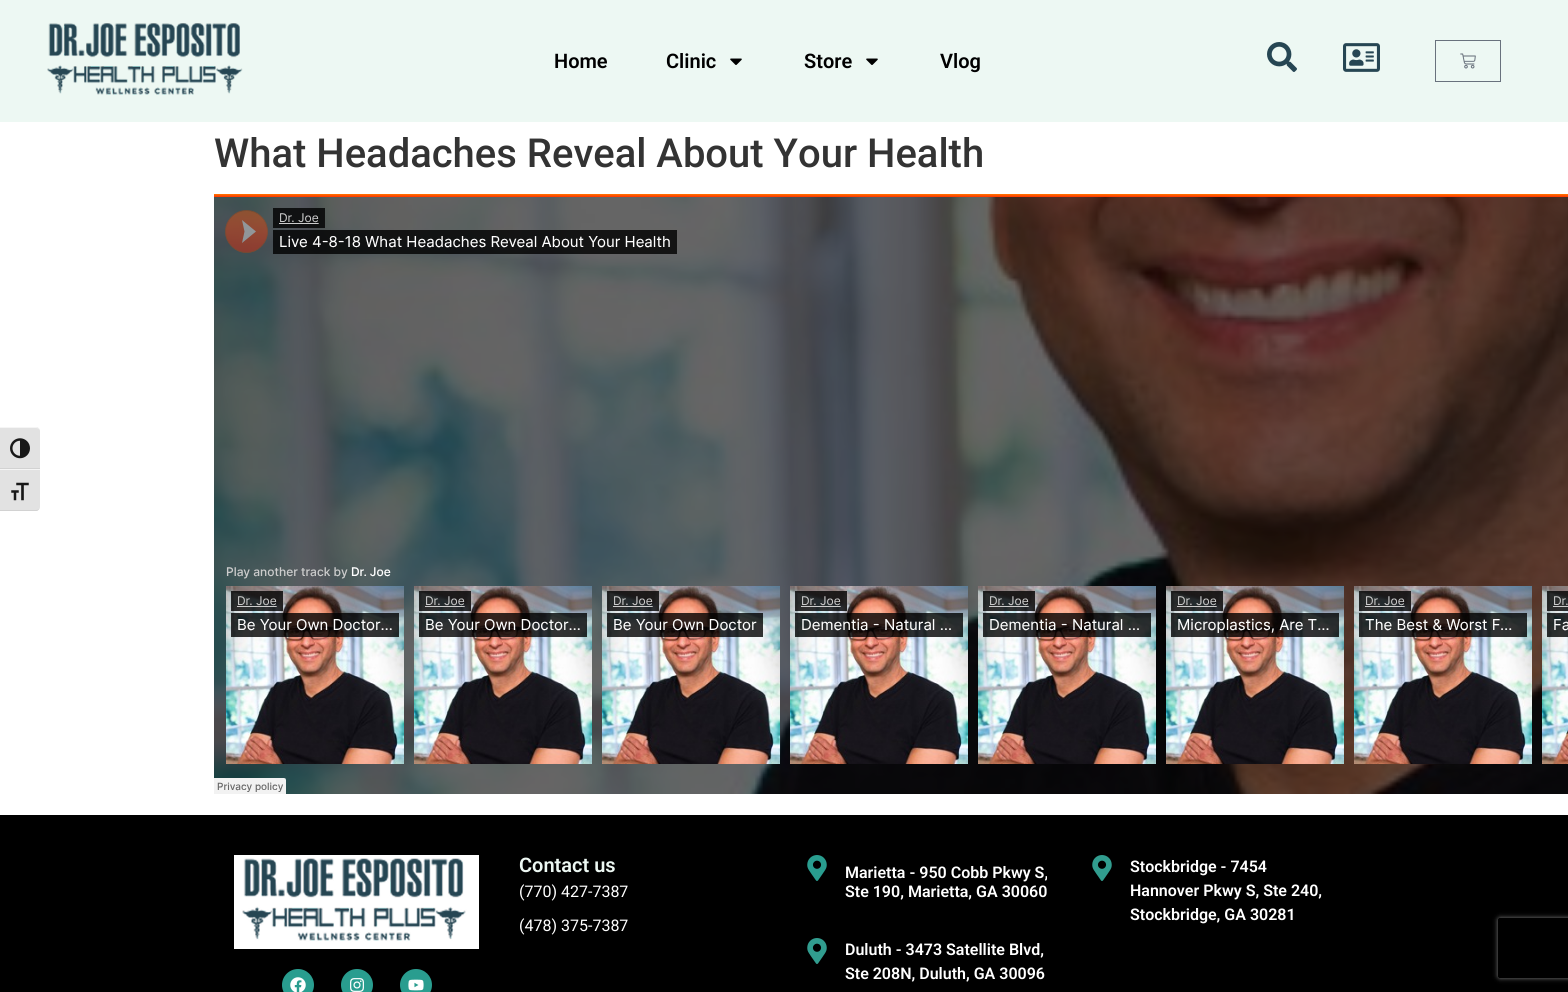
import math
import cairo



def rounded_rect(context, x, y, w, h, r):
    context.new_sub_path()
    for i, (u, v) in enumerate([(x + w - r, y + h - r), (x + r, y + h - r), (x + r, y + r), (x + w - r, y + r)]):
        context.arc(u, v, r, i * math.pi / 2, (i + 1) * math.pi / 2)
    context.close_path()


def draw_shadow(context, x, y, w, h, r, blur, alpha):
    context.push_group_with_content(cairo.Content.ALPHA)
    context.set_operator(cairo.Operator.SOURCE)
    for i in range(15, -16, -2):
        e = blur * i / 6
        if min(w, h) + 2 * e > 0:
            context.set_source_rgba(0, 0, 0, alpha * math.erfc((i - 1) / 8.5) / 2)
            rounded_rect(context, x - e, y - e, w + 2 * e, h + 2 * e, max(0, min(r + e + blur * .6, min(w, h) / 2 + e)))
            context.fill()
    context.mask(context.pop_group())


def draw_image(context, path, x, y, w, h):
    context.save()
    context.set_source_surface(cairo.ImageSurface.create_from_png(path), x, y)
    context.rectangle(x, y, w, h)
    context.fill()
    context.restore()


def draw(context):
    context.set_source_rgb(1, 1, 1)
    context.paint()
    context.set_source_rgb(226 / 255, 226 / 255, 226 / 255)
    context.new_path()
    context.move_to(0, 427)
    context.line_to(36, 427)
    context.curve_to(38, 427, 40, 429, 40, 431)
    context.line_to(40, 469)
    context.line_to(0, 469)
    context.close_path()
    context.fill()
    context.set_source_rgb(245 / 255, 245 / 255, 245 / 255)
    context.new_path()
    context.move_to(0, 427)
    context.line_to(0, 428)
    context.line_to(36, 428)
    context.curve_to(38, 428, 40, 429, 40, 431)
    context.curve_to(40, 429, 38, 427, 36, 427)
    context.close_path()
    context.fill()
    context.set_source_rgb(210 / 255, 210 / 255, 210 / 255)
    context.rectangle(0, 468, 40, 1)
    context.fill()
    draw_image(context, "images/1.png", 10, 438, 20, 21)
    context.set_source_rgb(226 / 255, 226 / 255, 226 / 255)
    context.new_path()
    context.move_to(0, 469)
    context.line_to(40, 469)
    context.line_to(40, 507)
    context.curve_to(40, 509, 38, 511, 36, 511)
    context.line_to(0, 511)
    context.close_path()
    context.fill()
    context.set_source_rgb(245 / 255, 245 / 255, 245 / 255)
    context.rectangle(0, 469, 40, 1)
    context.fill()
    context.set_source_rgb(210 / 255, 210 / 255, 210 / 255)
    context.new_path()
    context.move_to(0, 510)
    context.line_to(0, 511)
    context.line_to(36, 511)
    context.curve_to(38, 511, 40, 509, 40, 507)
    context.curve_to(40, 509, 38, 510, 36, 510)
    context.close_path()
    context.fill()
    draw_image(context, "images/2.png", 11, 482, 18, 19)
    context.set_source_rgb(237 / 255, 248 / 255, 243 / 255)
    context.rectangle(0, 0, 1568, 122)
    context.fill()
    draw_image(context, "images/3.png", 47, 23, 196, 72)
    draw_image(context, "images/4.png", 730, 58, 12, 7)
    draw_image(context, "images/4.png", 866, 58, 12, 7)
    draw_image(context, "images/5.png", 1267, 42, 30, 30)
    draw_image(context, "images/6.png", 1343, 43, 37, 29)
    context.rectangle(1435.5, 40.5, 65, 41)
    context.set_source_rgb(105 / 255, 114 / 255, 125 / 255)
    context.set_line_width(1)
    context.stroke()
    draw_image(context, "images/7.png", 1460, 53, 16, 16)
    draw_image(context, "images/8.png", 214, 194, 1354, 600)
    context.set_source_rgb(0, 0, 0)
    context.rectangle(0, 815, 1568, 177)
    context.fill()
    draw_image(context, "images/9.png", 234, 855, 245, 94)
    context.set_source_rgb(41 / 255, 157 / 255, 143 / 255)
    context.arc(298, 985, 16, 0, 2 * math.pi)
    context.fill()
    draw_image(context, "images/10.png", 290, 977, 16, 15)
    context.arc(357, 985, 16, 0, 2 * math.pi)
    context.fill()
    draw_image(context, "images/11.png", 350, 978, 14, 14)
    context.arc(416, 985, 16, 0, 2 * math.pi)
    context.fill()
    draw_image(context, "images/12.png", 408, 979, 16, 12)
    draw_image(context, "images/13.png", 807, 855, 20, 26)
    draw_image(context, "images/14.png", 807, 938, 20, 26)
    draw_image(context, "images/14.png", 1092, 855, 20, 26)
    context.save()
    context.set_fill_rule(cairo.FillRule.EVEN_ODD)
    context.new_path()
    context.move_to(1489, 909)
    context.line_to(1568, 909)
    context.line_to(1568, 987)
    context.line_to(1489, 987)
    context.close_path()
    context.move_to(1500, 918)
    context.line_to(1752, 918)
    context.curve_to(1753, 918, 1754, 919, 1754, 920)
    context.line_to(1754, 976)
    context.curve_to(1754, 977, 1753, 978, 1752, 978)
    context.line_to(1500, 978)
    context.curve_to(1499, 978, 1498, 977, 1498, 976)
    context.line_to(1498, 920)
    context.curve_to(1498, 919, 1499, 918, 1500, 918)
    context.close_path()
    context.clip()
    context.set_source_rgb(128 / 255, 128 / 255, 128 / 255)
    draw_shadow(context, 1498, 918, 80, 60, 2, 2.5, 1)
    context.restore()
    context.select_font_face("Roboto SemiBold")
    context.set_font_size(20)
    context.set_source_rgb(0, 0, 0)
    context.move_to(554, 68)
    context.show_text("Home")
    context.move_to(666, 68)
    context.show_text("Clinic")
    context.move_to(804, 68)
    context.show_text("Store")
    context.move_to(940, 68)
    context.show_text("Vlog")
    context.select_font_face("Roboto Medium")
    context.set_font_size(40)
    context.set_source_rgb(51 / 255, 51 / 255, 51 / 255)
    context.move_to(214, 167)
    context.show_text("What Headaches Reveal About Your Health")
    context.select_font_face("Roboto SemiBold")
    context.set_font_size(20)
    context.set_source_rgb(237 / 255, 248 / 255, 243 / 255)
    context.move_to(519, 872)
    context.show_text("Contact us")
    context.select_font_face("Roboto")
    context.set_font_size(16)
    context.set_source_rgb(1, 1, 1)
    context.move_to(519, 897)
    context.show_text("(770) 427-7387")
    context.move_to(519, 931)
    context.show_text("(478) 375-7387")
    context.select_font_face("Roboto SemiBold")
    context.move_to(845, 878)
    context.show_text("Marietta - 950 Cobb Pkwy S,")
    context.move_to(845, 897)
    context.show_text("Ste 190, Marietta, GA 30060")
    context.move_to(845, 955)
    context.show_text("Duluth - 3473 Satellite Blvd,")
    context.move_to(845, 979)
    context.show_text("Ste 208N, Duluth, GA 30096")
    context.move_to(1130, 872)
    context.show_text("Stockbridge - 7454")
    context.move_to(1130, 896)
    context.show_text("Hannover Pkwy S, Ste 240,")
    context.move_to(1130, 920)
    context.show_text("Stockbridge, GA 30281")


surface = cairo.ImageSurface(cairo.Format.RGB24, 1568, 992)
context = cairo.Context(surface)
options = cairo.FontOptions()
options.set_hint_metrics(cairo.HintMetrics.OFF)
options.set_hint_style(cairo.HintStyle.NONE)
context.set_font_options(options)
context.set_miter_limit(4)
draw(context)
surface.write_to_png("out.png")
